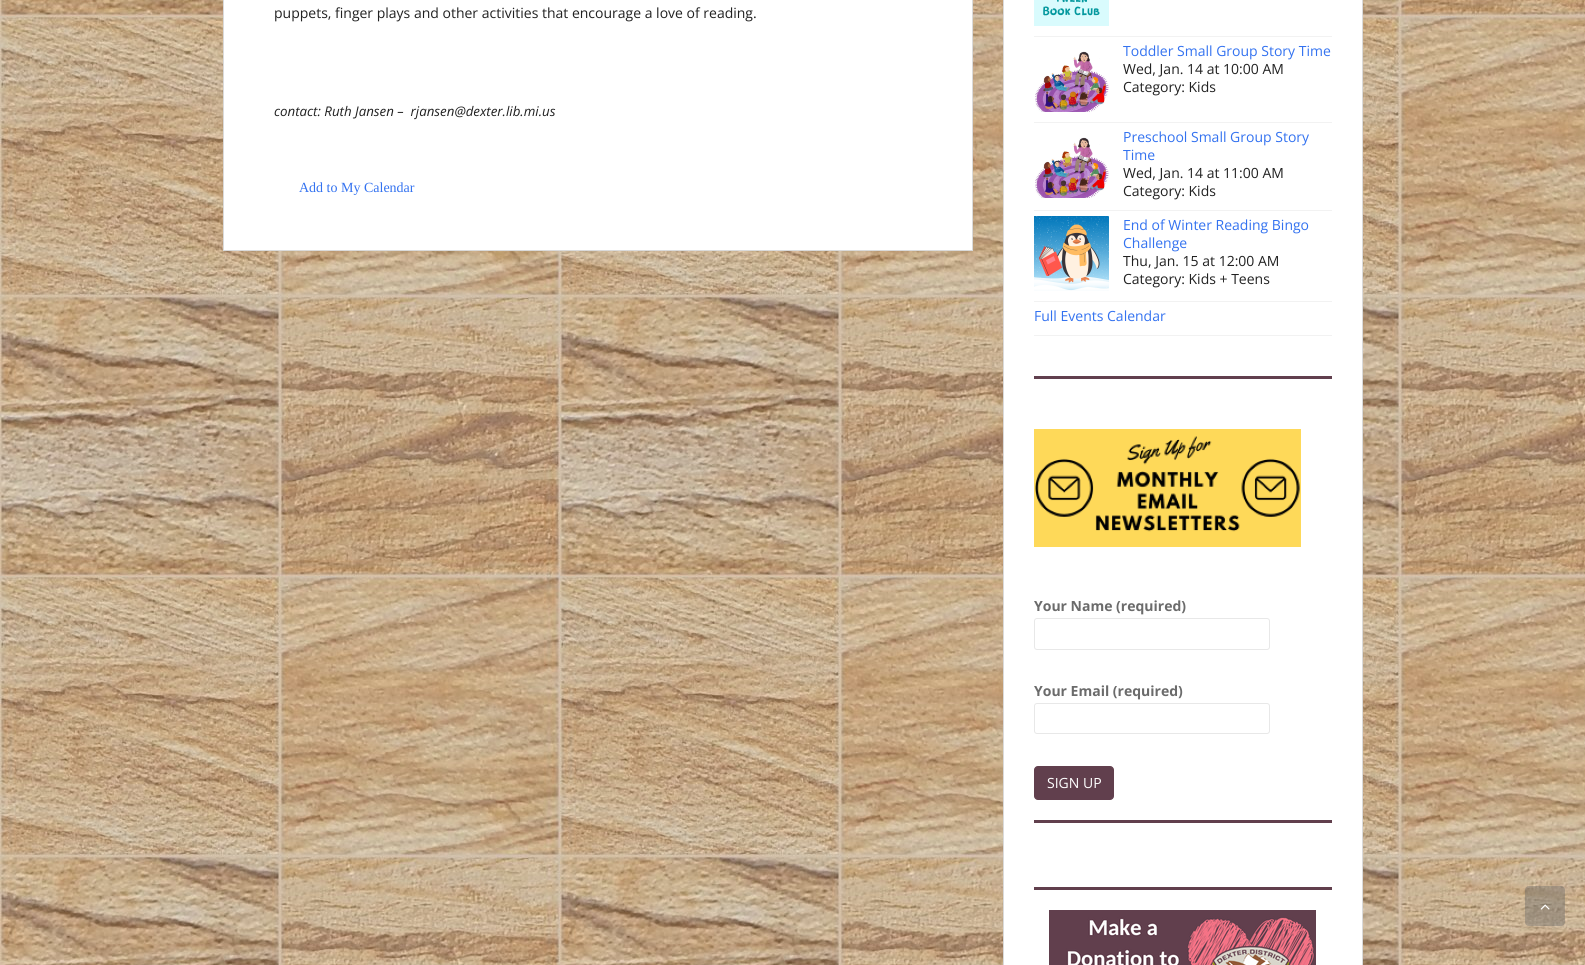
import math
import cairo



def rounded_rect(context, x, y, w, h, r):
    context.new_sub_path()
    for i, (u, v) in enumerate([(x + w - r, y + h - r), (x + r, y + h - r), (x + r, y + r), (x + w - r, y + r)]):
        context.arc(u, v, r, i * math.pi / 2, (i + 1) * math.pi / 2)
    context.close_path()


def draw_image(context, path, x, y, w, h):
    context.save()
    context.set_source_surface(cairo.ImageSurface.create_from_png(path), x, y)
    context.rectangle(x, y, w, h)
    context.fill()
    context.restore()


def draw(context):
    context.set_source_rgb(1, 1, 1)
    context.paint()
    draw_image(context, "images/1.png", 0, 0, 1585, 965)
    context.set_source_rgb(1, 1, 1)
    context.rectangle(224, 0, 748, 250)
    context.fill()
    context.set_source_rgb(218 / 255, 218 / 255, 218 / 255)
    context.rectangle(972, 0, 1, 251)
    context.fill()
    context.rectangle(223, 250, 750, 1)
    context.fill()
    context.rectangle(223, 0, 1, 251)
    context.fill()
    context.set_source_rgb(1, 1, 1)
    context.rectangle(1003.5, -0.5, 359, 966)
    context.fill_preserve()
    context.set_source_rgb(218 / 255, 218 / 255, 218 / 255)
    context.set_line_width(1)
    context.stroke()
    context.set_source_rgb(97 / 255, 63 / 255, 78 / 255)
    context.rectangle(1034, 376, 298, 3)
    context.fill()
    context.set_source_rgb(242 / 255, 242 / 255, 242 / 255)
    context.rectangle(1034, 36, 298, 1)
    context.fill()
    draw_image(context, "images/2.png", 1034, 0, 75, 26)
    context.rectangle(1034, 122, 298, 1)
    context.fill()
    draw_image(context, "images/3.png", 1035, 51, 74, 61)
    context.rectangle(1034, 210, 298, 1)
    context.fill()
    draw_image(context, "images/3.png", 1035, 137, 74, 61)
    context.rectangle(1034, 301, 298, 1)
    context.fill()
    draw_image(context, "images/4.png", 1034, 216, 75, 75)
    context.rectangle(1034, 335, 298, 1)
    context.fill()
    draw_image(context, "images/5.png", 1034, 429, 267, 118)
    rounded_rect(context, 1034.5, 618.5, 235, 31, 2.5)
    context.set_source_rgb(232 / 255, 232 / 255, 232 / 255)
    context.stroke()
    rounded_rect(context, 1034.5, 703.5, 235, 30, 2.5)
    context.stroke()
    context.set_source_rgb(97 / 255, 63 / 255, 77 / 255)
    rounded_rect(context, 1034.5, 766.5, 79, 33, 3.5)
    context.fill_preserve()
    context.stroke()
    context.rectangle(1034, 820, 298, 3)
    context.fill()
    context.rectangle(1034, 887, 298, 3)
    context.fill()
    draw_image(context, "images/6.png", 1049, 910, 267, 55)
    context.set_source_rgba(100 / 255, 100 / 255, 100 / 255, 0.4)
    rounded_rect(context, 1525, 886, 40, 40, 4)
    context.fill()
    draw_image(context, "images/7.png", 1540, 904, 10, 6)
    context.select_font_face("Open Sans")
    context.set_font_size(14)
    context.set_source_rgb(33 / 255, 33 / 255, 33 / 255)
    context.move_to(274, 18)
    context.show_text("puppets, finger plays and other activities that encourage a love of reading.")
    context.select_font_face("Open Sans", cairo.FontSlant.ITALIC)
    context.set_font_size(13.3)
    context.move_to(274, 116)
    context.show_text("contact: Ruth Jansen –  rjansen@dexter.lib.mi.us")
    context.select_font_face("Liberation Serif")
    context.set_font_size(14)
    context.set_source_rgb(51 / 255, 114 / 255, 240 / 255)
    context.move_to(299, 192)
    context.show_text("Add to My Calendar")
    context.select_font_face("Open Sans")
    context.move_to(1123, 56)
    context.show_text("Toddler Small Group Story Time")
    context.set_source_rgb(33 / 255, 33 / 255, 33 / 255)
    context.move_to(1123, 74)
    context.show_text("Wed, Jan. 14 at 10:00 AM")
    context.move_to(1123, 92)
    context.show_text("Category: Kids")
    context.set_source_rgb(51 / 255, 114 / 255, 240 / 255)
    context.move_to(1123, 142)
    context.show_text("Preschool Small Group Story")
    context.move_to(1123, 160)
    context.show_text("Time")
    context.set_source_rgb(33 / 255, 33 / 255, 33 / 255)
    context.move_to(1123, 178)
    context.show_text("Wed, Jan. 14 at 11:00 AM")
    context.move_to(1123, 196)
    context.show_text("Category: Kids")
    context.set_source_rgb(51 / 255, 114 / 255, 240 / 255)
    context.move_to(1123, 230)
    context.show_text("End of Winter Reading Bingo")
    context.move_to(1123, 248)
    context.show_text("Challenge")
    context.set_source_rgb(33 / 255, 33 / 255, 33 / 255)
    context.move_to(1123, 266)
    context.show_text("Thu, Jan. 15 at 12:00 AM")
    context.move_to(1123, 284)
    context.show_text("Category: Kids + Teens")
    context.set_source_rgb(51 / 255, 114 / 255, 240 / 255)
    context.move_to(1034, 321)
    context.show_text("Full Events Calendar")
    context.select_font_face("Open Sans", cairo.FontSlant.NORMAL, cairo.FontWeight.BOLD)
    context.set_source_rgb(107 / 255, 107 / 255, 107 / 255)
    context.move_to(1034, 611)
    context.show_text("Your Name (required)")
    context.move_to(1034, 696)
    context.show_text("Your Email (required)")
    context.select_font_face("Open Sans")
    context.set_source_rgb(1, 1, 1)
    context.move_to(1047, 788)
    context.show_text("SIGN UP")


surface = cairo.ImageSurface(cairo.Format.RGB24, 1585, 965)
context = cairo.Context(surface)
options = cairo.FontOptions()
options.set_hint_metrics(cairo.HintMetrics.OFF)
options.set_hint_style(cairo.HintStyle.NONE)
context.set_font_options(options)
context.set_miter_limit(4)
draw(context)
surface.write_to_png("out.png")
